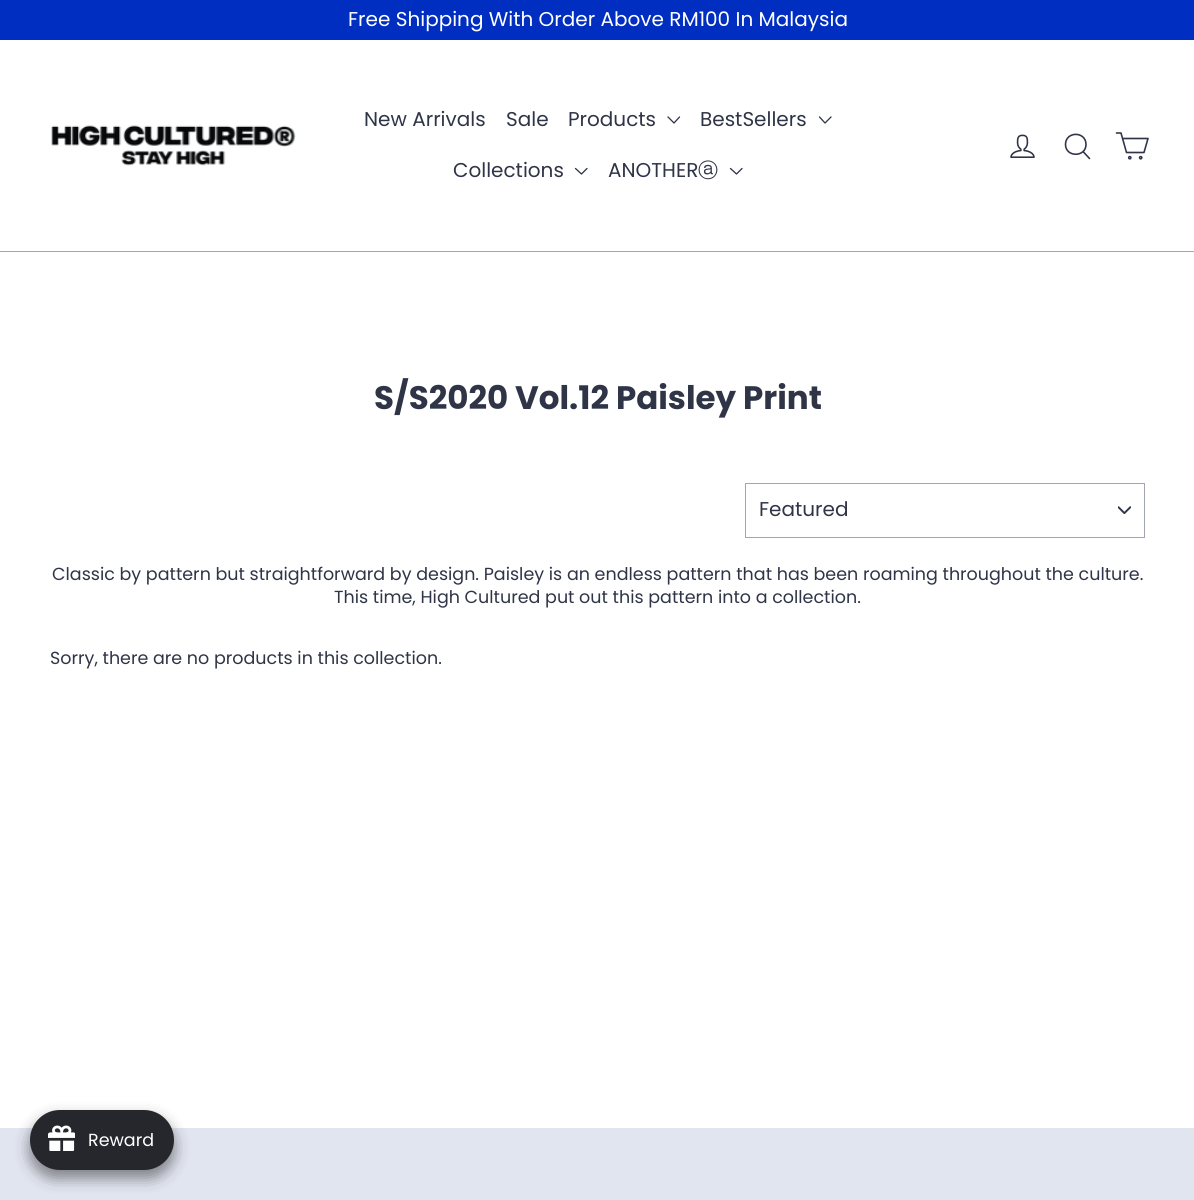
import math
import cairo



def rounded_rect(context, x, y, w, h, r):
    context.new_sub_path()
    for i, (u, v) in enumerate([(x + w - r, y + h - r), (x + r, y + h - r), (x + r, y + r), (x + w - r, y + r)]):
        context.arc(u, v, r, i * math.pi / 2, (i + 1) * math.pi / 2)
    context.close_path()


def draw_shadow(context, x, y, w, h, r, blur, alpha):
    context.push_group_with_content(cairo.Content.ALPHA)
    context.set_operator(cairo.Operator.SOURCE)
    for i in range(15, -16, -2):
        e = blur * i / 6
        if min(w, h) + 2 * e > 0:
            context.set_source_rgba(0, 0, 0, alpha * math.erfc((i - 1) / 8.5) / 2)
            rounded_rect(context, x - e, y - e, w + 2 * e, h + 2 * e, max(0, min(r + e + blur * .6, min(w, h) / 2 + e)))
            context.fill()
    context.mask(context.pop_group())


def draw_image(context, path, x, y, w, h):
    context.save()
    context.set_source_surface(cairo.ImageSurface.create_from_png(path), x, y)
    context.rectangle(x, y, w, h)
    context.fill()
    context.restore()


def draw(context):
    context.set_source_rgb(1, 1, 1)
    context.paint()
    context.set_source_rgb(0, 46 / 255, 193 / 255)
    context.rectangle(0, 0, 1194, 40)
    context.fill()
    context.set_source_rgb(162 / 255, 166 / 255, 179 / 255)
    context.rectangle(0, 251, 1194, 1)
    context.fill()
    draw_image(context, "images/1.png", 51, 125, 245, 41)
    context.new_path()
    context.move_to(668, 117)
    context.line_to(674, 123)
    context.line_to(679.5, 117)
    context.set_source_rgb(47 / 255, 53 / 255, 71 / 255)
    context.set_line_width(1.3)
    context.set_line_cap(cairo.LineCap.ROUND)
    context.set_line_join(cairo.LineJoin.ROUND)
    context.stroke()
    context.new_path()
    context.move_to(819.5, 117)
    context.line_to(825, 123)
    context.line_to(831, 117)
    context.stroke()
    context.new_path()
    context.move_to(575.5, 168.5)
    context.line_to(581.5, 174)
    context.line_to(587, 168.5)
    context.stroke()
    context.new_path()
    context.move_to(730.5, 168.5)
    context.line_to(736.5, 174)
    context.line_to(742, 168.5)
    context.stroke()
    draw_image(context, "images/2.png", 1010, 134, 25, 24)
    context.new_path()
    context.move_to(1086, 144.5)
    context.curve_to(1086, 157.5, 1065.5, 157.5, 1065.5, 144.5)
    context.curve_to(1065.5, 131, 1086, 131, 1086, 144.5)
    context.close_path()
    context.move_to(1089.5, 158.5)
    context.line_to(1083, 151.5)
    context.set_line_width(1.6)
    context.stroke()
    context.new_path()
    context.move_to(1122.5, 138.5)
    context.line_to(1148, 138.5)
    context.line_to(1144, 152.5)
    context.line_to(1126.5, 152.5)
    context.line_to(1121, 133)
    context.line_to(1116.5, 133)
    context.stroke()
    context.arc(1129.8, 157.7, 1.1, 0, 2 * math.pi)
    context.set_line_cap(cairo.LineCap.BUTT)
    context.set_line_join(cairo.LineJoin.MITER)
    context.stroke()
    context.arc(1140.7, 157.7, 1.1, 0, 2 * math.pi)
    context.stroke()
    draw_image(context, "images/3.png", 1118, 506, 13, 8)
    context.rectangle(745.5, 483.5, 399, 54)
    context.set_source_rgb(162 / 255, 166 / 255, 179 / 255)
    context.set_line_width(1)
    context.stroke()
    context.set_source_rgb(225 / 255, 229 / 255, 240 / 255)
    context.rectangle(0, 1128, 1194, 72)
    context.fill()
    context.set_source_rgb(0, 0, 0)
    draw_shadow(context, 30, 1118, 144, 60, 30, 7.5, 0.25)
    draw_shadow(context, 30, 1118, 144, 60, 30, 7.5, 0.25)
    context.set_source_rgb(37 / 255, 39 / 255, 44 / 255)
    rounded_rect(context, 30, 1110, 144, 60, 30)
    context.fill()
    draw_image(context, "images/4.png", 48, 1125, 27, 26)
    context.select_font_face("Poppins")
    context.set_font_size(20)
    context.set_source_rgb(1, 1, 1)
    context.move_to(348, 26)
    context.show_text("Free Shipping With Order Above RM100 In Malaysia")
    context.set_source_rgb(47 / 255, 53 / 255, 71 / 255)
    context.move_to(364, 126)
    context.show_text("New Arrivals")
    context.move_to(506, 126)
    context.show_text("Sale")
    context.move_to(568, 126)
    context.show_text("Products")
    context.move_to(700, 126)
    context.show_text("BestSellers")
    context.move_to(453, 177)
    context.show_text("Collections")
    context.move_to(608, 177)
    context.show_text("ANOTHER")
    context.select_font_face("WenQuanYi Zen Hei Medium")
    context.move_to(698, 177)
    context.show_text("ⓐ")
    context.select_font_face("Poppins", cairo.FontSlant.NORMAL, cairo.FontWeight.BOLD)
    context.set_font_size(32.5)
    context.move_to(374, 409)
    context.show_text("S/S2020 Vol.12 Paisley Print")
    context.select_font_face("Poppins")
    context.set_font_size(20)
    context.move_to(759, 516)
    context.show_text("Featured")
    context.set_font_size(17.5)
    context.move_to(52, 580)
    context.show_text("Classic by pattern but straightforward by design. Paisley is an endless pattern that has been roaming throughout the culture.")
    context.move_to(334, 603)
    context.show_text("This time, High Cultured put out this pattern into a collection.")
    context.move_to(50, 664)
    context.show_text("Sorry, there are no products in this collection.")
    context.set_source_rgb(1, 1, 1)
    context.move_to(88, 1146)
    context.show_text("Reward")


surface = cairo.ImageSurface(cairo.Format.RGB24, 1194, 1200)
context = cairo.Context(surface)
options = cairo.FontOptions()
options.set_hint_metrics(cairo.HintMetrics.OFF)
options.set_hint_style(cairo.HintStyle.NONE)
context.set_font_options(options)
context.set_miter_limit(4)
draw(context)
surface.write_to_png("out.png")
